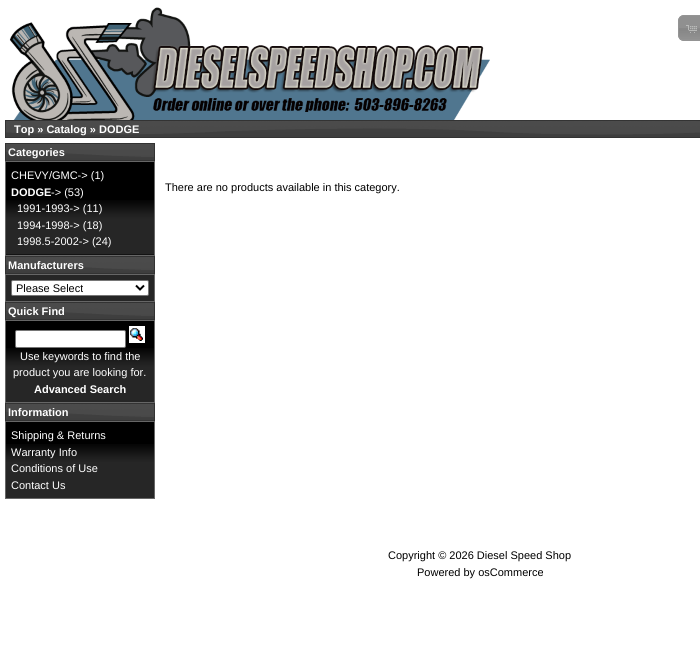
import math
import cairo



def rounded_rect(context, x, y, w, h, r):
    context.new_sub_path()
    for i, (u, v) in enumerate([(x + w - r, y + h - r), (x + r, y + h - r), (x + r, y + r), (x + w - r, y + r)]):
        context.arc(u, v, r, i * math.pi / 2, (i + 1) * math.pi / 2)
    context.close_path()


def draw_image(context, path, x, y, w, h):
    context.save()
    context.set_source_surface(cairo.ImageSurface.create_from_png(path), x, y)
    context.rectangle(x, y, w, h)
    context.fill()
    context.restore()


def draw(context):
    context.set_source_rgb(1, 1, 1)
    context.paint()
    draw_image(context, "images/1.png", 9, 7, 481, 113)
    draw_image(context, "images/2.png", 678, 15, 22, 26)
    context.new_path()
    context.move_to(684, 15.5)
    context.line_to(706.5, 15.5)
    context.line_to(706.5, 40.5)
    context.line_to(684, 40.5)
    context.curve_to(681, 40.5, 678.5, 38, 678.5, 35)
    context.line_to(678.5, 21)
    context.curve_to(678.5, 18, 681, 15.5, 684, 15.5)
    context.close_path()
    context.set_source_rgb(148 / 255, 148 / 255, 148 / 255)
    context.set_line_width(1)
    context.stroke()
    draw_image(context, "images/3.png", 686, 25, 11, 8)
    draw_image(context, "images/4.png", 6, 121, 694, 16)
    context.rectangle(5.5, 120.5, 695, 17)
    context.set_source_rgb(51 / 255, 51 / 255, 51 / 255)
    context.stroke()
    draw_image(context, "images/5.png", 6, 144, 148, 16)
    context.rectangle(5.5, 143.5, 149, 17)
    context.stroke()
    context.set_source_rgb(0, 0, 0)
    context.rectangle(6, 162, 148, 38)
    context.fill()
    draw_image(context, "images/6.png", 6, 200, 148, 55)
    context.rectangle(5.5, 161.5, 149, 94)
    context.set_source_rgb(102 / 255, 102 / 255, 102 / 255)
    context.stroke()
    draw_image(context, "images/5.png", 6, 257, 148, 16)
    context.rectangle(5.5, 256.5, 149, 17)
    context.set_source_rgb(51 / 255, 51 / 255, 51 / 255)
    context.stroke()
    context.set_source_rgb(38 / 255, 38 / 255, 38 / 255)
    context.rectangle(5.5, 274.5, 149, 27)
    context.fill_preserve()
    context.set_source_rgb(102 / 255, 102 / 255, 102 / 255)
    context.stroke()
    context.set_source_rgb(1, 1, 1)
    rounded_rect(context, 11.5, 280.5, 137, 15, 1.5)
    context.fill_preserve()
    context.set_source_rgb(118 / 255, 118 / 255, 118 / 255)
    context.stroke()
    context.new_path()
    context.move_to(136, 285.5)
    context.line_to(140, 289.5)
    context.line_to(144, 285.5)
    context.set_source_rgb(0, 0, 0)
    context.set_line_width(2)
    context.stroke()
    draw_image(context, "images/5.png", 6, 303, 148, 16)
    context.rectangle(5.5, 302.5, 149, 17)
    context.set_source_rgb(51 / 255, 51 / 255, 51 / 255)
    context.set_line_width(1)
    context.stroke()
    context.set_source_rgb(0, 0, 0)
    context.rectangle(6, 321, 148, 27)
    context.fill()
    draw_image(context, "images/7.png", 6, 348, 148, 54)
    context.rectangle(5.5, 320.5, 149, 82)
    context.set_source_rgb(102 / 255, 102 / 255, 102 / 255)
    context.stroke()
    context.set_source_rgb(1, 1, 1)
    rounded_rect(context, 15.5, 330.5, 110, 17, 1.5)
    context.fill_preserve()
    context.set_source_rgb(118 / 255, 118 / 255, 118 / 255)
    context.stroke()
    draw_image(context, "images/8.png", 129, 326, 16, 17)
    draw_image(context, "images/5.png", 6, 404, 148, 16)
    context.rectangle(5.5, 403.5, 149, 17)
    context.set_source_rgb(51 / 255, 51 / 255, 51 / 255)
    context.stroke()
    context.set_source_rgb(0, 0, 0)
    context.rectangle(6, 422, 148, 22)
    context.fill()
    draw_image(context, "images/9.png", 6, 444, 148, 54)
    context.rectangle(5.5, 421.5, 149, 77)
    context.set_source_rgb(102 / 255, 102 / 255, 102 / 255)
    context.stroke()
    context.select_font_face("Liberation Sans", cairo.FontSlant.NORMAL, cairo.FontWeight.BOLD)
    context.set_font_size(11)
    context.set_source_rgb(1, 1, 1)
    context.move_to(14, 133)
    context.show_text("Top » Catalog » DODGE")
    context.move_to(8, 156)
    context.show_text("Categories")
    context.select_font_face("Liberation Sans")
    context.move_to(11, 179)
    context.show_text("CHEVY/GMC-> (1)")
    context.select_font_face("Liberation Sans", cairo.FontSlant.NORMAL, cairo.FontWeight.BOLD)
    context.move_to(11, 196)
    context.show_text("DODGE")
    context.select_font_face("Liberation Sans")
    context.move_to(51, 196)
    context.show_text("-> (53)")
    context.move_to(17, 212)
    context.show_text("1991-1993-> (11)")
    context.move_to(17, 229)
    context.show_text("1994-1998-> (18)")
    context.move_to(17, 245)
    context.show_text("1998.5-2002-> (24)")
    context.select_font_face("Liberation Sans", cairo.FontSlant.NORMAL, cairo.FontWeight.BOLD)
    context.move_to(8, 269)
    context.show_text("Manufacturers")
    context.select_font_face("Liberation Sans")
    context.set_source_rgb(0, 0, 0)
    context.move_to(16, 292)
    context.show_text("Please Select")
    context.select_font_face("Liberation Sans", cairo.FontSlant.NORMAL, cairo.FontWeight.BOLD)
    context.set_source_rgb(1, 1, 1)
    context.move_to(8, 315)
    context.show_text("Quick Find")
    context.select_font_face("Liberation Sans")
    context.move_to(20, 360)
    context.show_text("Use keywords to find the")
    context.move_to(13, 376)
    context.show_text("product you are looking for.")
    context.select_font_face("Liberation Sans", cairo.FontSlant.NORMAL, cairo.FontWeight.BOLD)
    context.move_to(34, 393)
    context.show_text("Advanced Search")
    context.move_to(8, 416)
    context.show_text("Information")
    context.select_font_face("Liberation Sans")
    context.move_to(11, 439)
    context.show_text("Shipping & Returns")
    context.move_to(11, 456)
    context.show_text("Warranty Info")
    context.move_to(11, 472)
    context.show_text("Conditions of Use")
    context.move_to(11, 489)
    context.show_text("Contact Us")
    context.set_source_rgb(0, 0, 0)
    context.move_to(165, 191)
    context.show_text("There are no products available in this category.")
    context.move_to(388, 559)
    context.show_text("Copyright © 2026 Diesel Speed Shop")
    context.move_to(417, 576)
    context.show_text("Powered by osCommerce")


surface = cairo.ImageSurface(cairo.Format.RGB24, 700, 672)
context = cairo.Context(surface)
options = cairo.FontOptions()
options.set_hint_metrics(cairo.HintMetrics.OFF)
options.set_hint_style(cairo.HintStyle.NONE)
context.set_font_options(options)
context.set_miter_limit(4)
draw(context)
surface.write_to_png("out.png")
